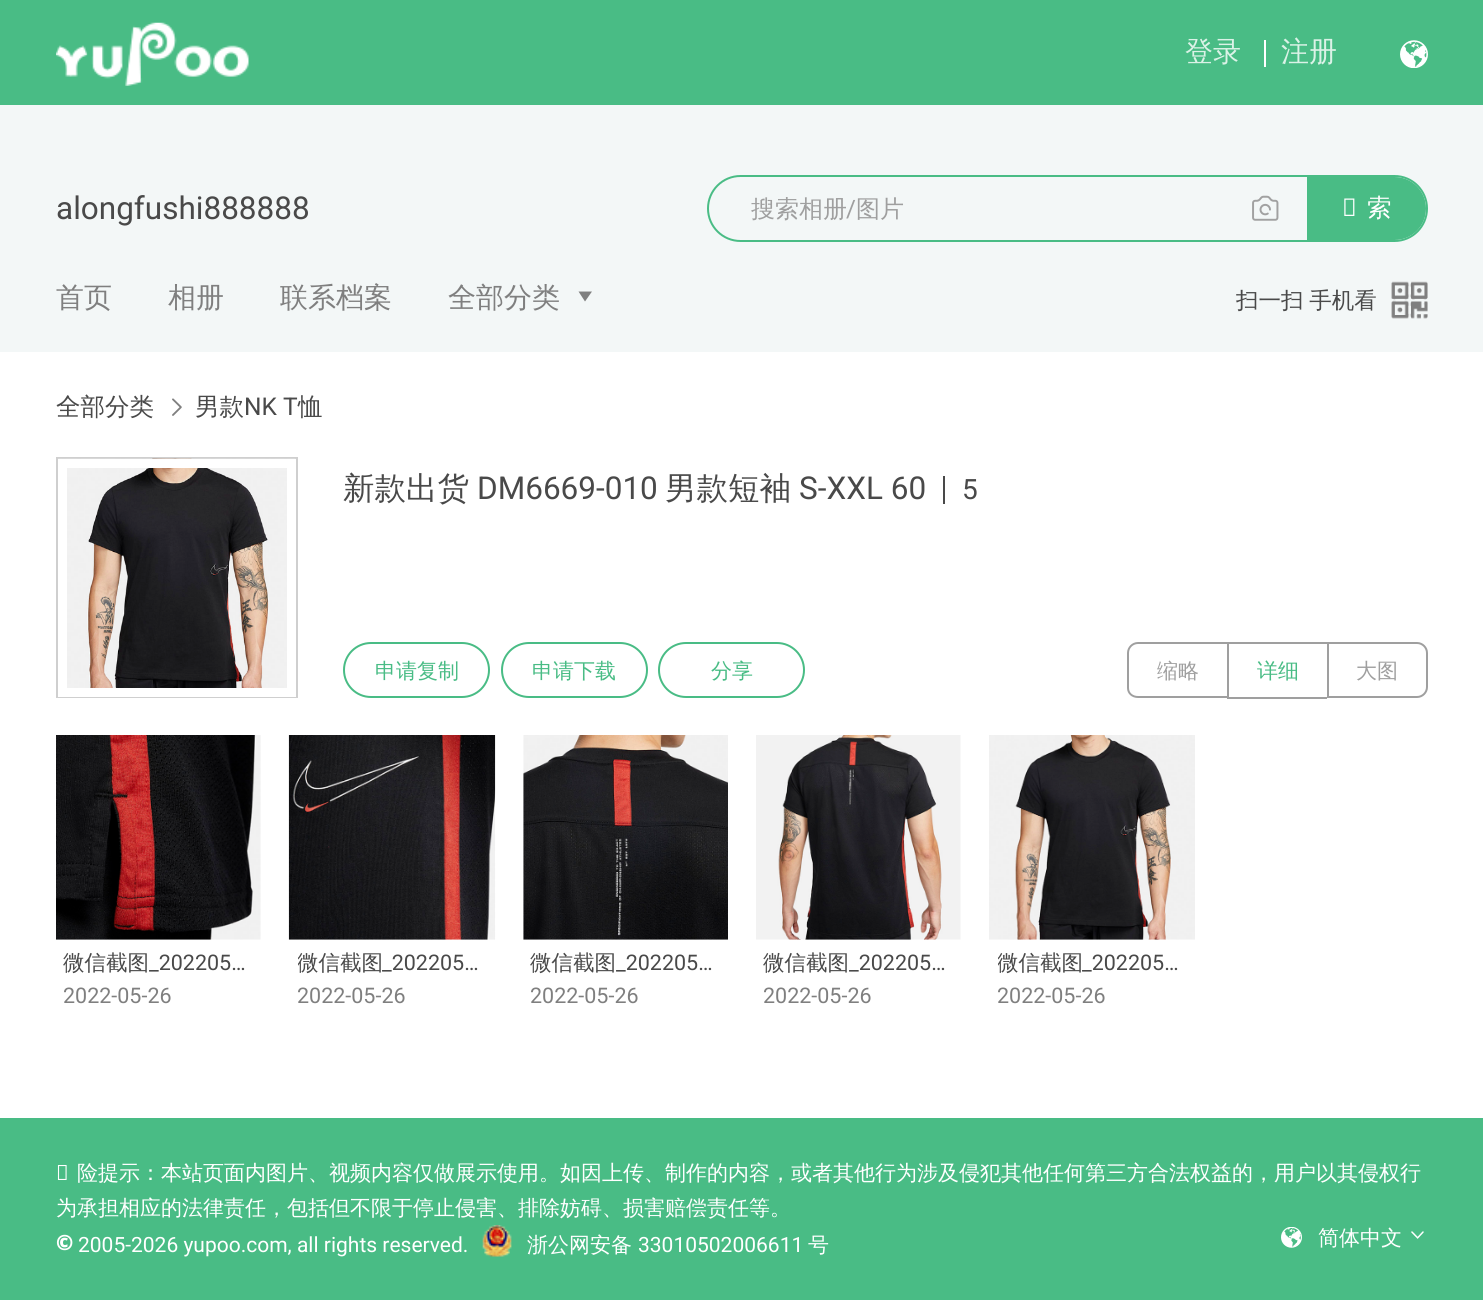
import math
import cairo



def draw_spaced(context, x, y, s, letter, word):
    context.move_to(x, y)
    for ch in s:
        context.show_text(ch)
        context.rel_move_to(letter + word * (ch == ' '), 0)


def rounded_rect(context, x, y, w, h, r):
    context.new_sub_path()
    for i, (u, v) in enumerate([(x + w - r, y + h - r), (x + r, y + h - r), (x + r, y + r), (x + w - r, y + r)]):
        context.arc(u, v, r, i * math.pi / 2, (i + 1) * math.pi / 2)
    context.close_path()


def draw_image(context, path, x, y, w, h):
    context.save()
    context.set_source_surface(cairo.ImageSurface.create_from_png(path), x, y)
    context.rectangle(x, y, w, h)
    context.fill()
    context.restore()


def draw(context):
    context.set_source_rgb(1, 1, 1)
    context.paint()
    context.set_source_rgb(73 / 255, 188 / 255, 133 / 255)
    context.rectangle(0, 0, 1483, 105)
    context.fill()
    draw_image(context, "images/1.png", 56, 22, 193, 64)
    context.set_source_rgb(1, 1, 1)
    context.rectangle(1264, 40, 2, 27)
    context.fill()
    draw_image(context, "images/2.png", 1400, 40, 28, 28)
    context.set_source_rgb(243 / 255, 247 / 255, 247 / 255)
    context.rectangle(0, 105, 1483, 247)
    context.fill()
    rounded_rect(context, 708, 176, 719, 65, 32.5)
    context.set_source_rgb(73 / 255, 188 / 255, 133 / 255)
    context.stroke()
    draw_image(context, "images/3.png", 1252, 195, 27, 26)
    context.new_path()
    context.move_to(1308, 178)
    context.line_to(1394.5, 178)
    context.curve_to(1411.5, 178, 1425, 191.5, 1425, 208.5)
    context.curve_to(1425, 225.5, 1411.5, 239, 1394.5, 239)
    context.line_to(1308, 239)
    context.close_path()
    context.fill_preserve()
    context.stroke()
    context.set_source_rgb(127 / 255, 127 / 255, 127 / 255)
    context.new_path()
    context.move_to(585, 301.5)
    context.line_to(578.5, 291.5)
    context.line_to(592, 291.5)
    context.close_path()
    context.fill()
    draw_image(context, "images/4.png", 1391, 281, 37, 38)
    draw_image(context, "images/5.png", 172, 398, 10, 18)
    context.rectangle(57, 458, 240, 239)
    context.set_source_rgb(207 / 255, 207 / 255, 207 / 255)
    context.stroke()
    draw_image(context, "images/6.png", 58, 458, 238, 230)
    context.rectangle(62.5, 463.5, 229, 229)
    context.set_source_rgb(1, 1, 1)
    context.set_line_width(9)
    context.stroke()
    context.set_source_rgb(73 / 255, 73 / 255, 73 / 255)
    context.rectangle(943, 476, 2, 28)
    context.fill()
    rounded_rect(context, 344, 643, 145, 54, 27)
    context.set_source_rgb(73 / 255, 188 / 255, 133 / 255)
    context.set_line_width(2)
    context.stroke()
    rounded_rect(context, 502, 643, 145, 54, 27)
    context.stroke()
    rounded_rect(context, 659, 643, 145, 54, 27)
    context.stroke()
    context.set_source_rgb(159 / 255, 159 / 255, 159 / 255)
    context.set_fill_rule(cairo.FillRule.EVEN_ODD)
    context.new_path()
    context.move_to(1138, 642)
    context.line_to(1227, 642)
    context.line_to(1227, 698)
    context.line_to(1138, 698)
    context.curve_to(1132, 698, 1127, 694, 1127, 688)
    context.line_to(1127, 653)
    context.curve_to(1127, 647, 1132, 642, 1138, 642)
    context.close_path()
    context.move_to(1138, 644)
    context.line_to(1227, 644)
    context.line_to(1227, 696)
    context.line_to(1138, 696)
    context.curve_to(1133, 696, 1129, 693, 1129, 688)
    context.line_to(1129, 653)
    context.curve_to(1129, 648, 1133, 644, 1138, 644)
    context.close_path()
    context.fill()
    context.rectangle(1227, 642, 100, 2)
    context.fill()
    context.rectangle(1227, 697, 100, 2)
    context.fill()
    context.rectangle(1227, 642, 2, 56)
    context.fill()
    context.new_path()
    context.move_to(1328, 643)
    context.line_to(1417, 643)
    context.curve_to(1422.5, 643, 1427, 647.5, 1427, 653)
    context.line_to(1427, 687)
    context.curve_to(1427, 692.5, 1422.5, 697, 1417, 697)
    context.line_to(1328, 697)
    context.close_path()
    context.stroke()
    draw_image(context, "images/7.png", 56, 735, 205, 205)
    draw_image(context, "images/8.png", 288, 735, 208, 205)
    draw_image(context, "images/9.png", 523, 735, 205, 205)
    draw_image(context, "images/10.png", 756, 735, 205, 205)
    draw_image(context, "images/11.png", 989, 735, 206, 205)
    context.set_source_rgb(73 / 255, 188 / 255, 133 / 255)
    context.rectangle(0, 1118, 1483, 182)
    context.fill()
    draw_image(context, "images/12.png", 482, 1225, 30, 32)
    draw_image(context, "images/13.png", 1281, 1227, 21, 21)
    draw_image(context, "images/14.png", 1411, 1231, 13, 8)
    context.select_font_face("WenQuanYi Zen Hei Medium")
    context.set_font_size(28)
    context.set_source_rgb(219 / 255, 242 / 255, 231 / 255)
    context.move_to(1185, 61)
    context.show_text("登录")
    context.move_to(1281, 61)
    context.show_text("注册")
    context.select_font_face("Roboto")
    context.set_font_size(31.5)
    context.set_source_rgb(73 / 255, 73 / 255, 73 / 255)
    context.move_to(56, 219)
    context.show_text("alongfushi888888")
    context.select_font_face("WenQuanYi Zen Hei Medium")
    context.set_font_size(24)
    context.set_source_rgb(159 / 255, 159 / 255, 159 / 255)
    context.move_to(751, 217)
    context.show_text("搜索相册")
    context.select_font_face("Roboto")
    context.move_to(846, 217)
    context.show_text("/")
    context.select_font_face("WenQuanYi Zen Hei Medium")
    context.move_to(856, 217)
    context.show_text("图片")
    context.select_font_face("Noto Sans")
    context.set_font_size(24.5)
    context.set_source_rgb(1, 1, 1)
    context.move_to(1342, 216)
    context.show_text("搜")
    context.select_font_face("WenQuanYi Zen Hei Medium")
    context.move_to(1367, 216)
    context.show_text("索")
    context.set_font_size(28)
    context.set_source_rgb(127 / 255, 127 / 255, 127 / 255)
    context.move_to(56, 307)
    context.show_text("首页")
    context.move_to(168, 307)
    context.show_text("相册")
    context.move_to(280, 307)
    context.show_text("联系档案")
    context.move_to(448, 307)
    context.show_text("全部分类")
    context.set_font_size(22.5)
    context.set_source_rgb(73 / 255, 73 / 255, 73 / 255)
    draw_spaced(context, 1236, 308, "扫一扫 手机看", 0, -1)
    context.set_font_size(24.5)
    context.move_to(56, 415)
    context.show_text("全部分类")
    context.move_to(195, 415)
    context.show_text("男款")
    context.select_font_face("Roboto")
    context.move_to(244, 415)
    context.show_text("NK T")
    context.select_font_face("WenQuanYi Zen Hei Medium")
    context.move_to(298, 415)
    context.show_text("恤")
    context.set_font_size(31.5)
    context.move_to(343, 499)
    context.show_text("新款出货")
    context.select_font_face("Roboto")
    context.move_to(477, 499)
    context.show_text("DM6669-010")
    context.select_font_face("WenQuanYi Zen Hei Medium")
    context.move_to(665, 499)
    context.show_text("男款短袖")
    context.select_font_face("Roboto")
    context.move_to(799, 499)
    context.show_text("S-XXL 60")
    context.set_font_size(28)
    context.move_to(962, 499)
    context.show_text("5")
    context.select_font_face("WenQuanYi Zen Hei Medium")
    context.set_font_size(21)
    context.set_source_rgb(73 / 255, 188 / 255, 133 / 255)
    context.move_to(375, 678)
    context.show_text("申请复制")
    context.move_to(532, 678)
    context.show_text("申请下载")
    context.move_to(711, 678)
    context.show_text("分享")
    context.set_source_rgb(159 / 255, 159 / 255, 159 / 255)
    context.move_to(1157, 678)
    context.show_text("缩略")
    context.set_source_rgb(73 / 255, 188 / 255, 133 / 255)
    context.move_to(1257, 678)
    context.show_text("详细")
    context.set_source_rgb(159 / 255, 159 / 255, 159 / 255)
    context.move_to(1356, 678)
    context.show_text("大图")
    context.set_font_size(21.5)
    context.set_source_rgb(73 / 255, 73 / 255, 73 / 255)
    context.move_to(63, 970)
    context.show_text("微信截图")
    context.select_font_face("Roboto")
    context.move_to(149, 970)
    context.show_text("_202205…")
    context.set_source_rgb(127 / 255, 127 / 255, 127 / 255)
    context.move_to(63, 1003)
    context.show_text("2022-05-26")
    context.save()
    context.set_fill_rule(cairo.FillRule.WINDING)
    context.rectangle(298, 949, 189, 31)
    context.clip()
    context.select_font_face("WenQuanYi Zen Hei Medium")
    context.set_source_rgb(73 / 255, 73 / 255, 73 / 255)
    context.move_to(297, 970)
    context.show_text("微信截图")
    context.restore()
    context.set_source_rgb(73 / 255, 73 / 255, 73 / 255)
    context.move_to(382, 970)
    context.show_text("_202205…")
    context.set_source_rgb(127 / 255, 127 / 255, 127 / 255)
    context.move_to(297, 1003)
    context.show_text("2022-05-26")
    context.select_font_face("WenQuanYi Zen Hei Medium")
    context.set_source_rgb(73 / 255, 73 / 255, 73 / 255)
    context.move_to(530, 970)
    context.show_text("微信截图")
    context.select_font_face("Roboto")
    context.move_to(616, 970)
    context.show_text("_202205…")
    context.set_source_rgb(127 / 255, 127 / 255, 127 / 255)
    context.move_to(530, 1003)
    context.show_text("2022-05-26")
    context.select_font_face("WenQuanYi Zen Hei Medium")
    context.set_source_rgb(73 / 255, 73 / 255, 73 / 255)
    context.move_to(763, 970)
    context.show_text("微信截图")
    context.select_font_face("Roboto")
    context.move_to(849, 970)
    context.show_text("_202205…")
    context.set_source_rgb(127 / 255, 127 / 255, 127 / 255)
    context.move_to(763, 1003)
    context.show_text("2022-05-26")
    context.save()
    context.set_fill_rule(cairo.FillRule.WINDING)
    context.rectangle(998, 949, 189, 31)
    context.clip()
    context.select_font_face("WenQuanYi Zen Hei Medium")
    context.set_source_rgb(73 / 255, 73 / 255, 73 / 255)
    context.move_to(997, 970)
    context.show_text("微信截图")
    context.restore()
    context.set_source_rgb(73 / 255, 73 / 255, 73 / 255)
    context.move_to(1082, 970)
    context.show_text("_202205…")
    context.set_source_rgb(127 / 255, 127 / 255, 127 / 255)
    context.move_to(997, 1003)
    context.show_text("2022-05-26")
    context.select_font_face("Noto Sans")
    context.set_font_size(21)
    context.set_source_rgb(1, 1, 1)
    context.move_to(56, 1180)
    context.show_text("风")
    context.select_font_face("WenQuanYi Zen Hei Medium")
    context.move_to(77, 1180)
    context.show_text("险提示：本站页面内图片、视频内容仅做展示使用。如因上传、制作的内容，或者其他行为涉及侵犯其他任何第三方合法权益的，用户以其侵权行")
    context.move_to(56, 1215)
    context.show_text("为承担相应的法律责任，包括但不限于停止侵害、排除妨碍、损害赔偿责任等。")
    context.select_font_face("Noto Sans Black")
    context.move_to(56, 1250)
    context.show_text("©")
    context.select_font_face("Roboto")
    context.move_to(78, 1252)
    context.show_text("2005-2026 yupoo.com, all rights reserved.")
    context.select_font_face("WenQuanYi Zen Hei Medium")
    context.move_to(527, 1252)
    context.show_text("浙公网安备")
    context.select_font_face("Roboto")
    context.move_to(638, 1252)
    context.show_text("33010502006611")
    context.select_font_face("WenQuanYi Zen Hei Medium")
    context.move_to(808, 1252)
    context.show_text("号")
    context.move_to(1318, 1245)
    context.show_text("简体中文")


surface = cairo.ImageSurface(cairo.Format.RGB24, 1483, 1300)
context = cairo.Context(surface)
options = cairo.FontOptions()
options.set_hint_metrics(cairo.HintMetrics.OFF)
options.set_hint_style(cairo.HintStyle.NONE)
context.set_font_options(options)
context.set_miter_limit(4)
draw(context)
surface.write_to_png("out.png")
